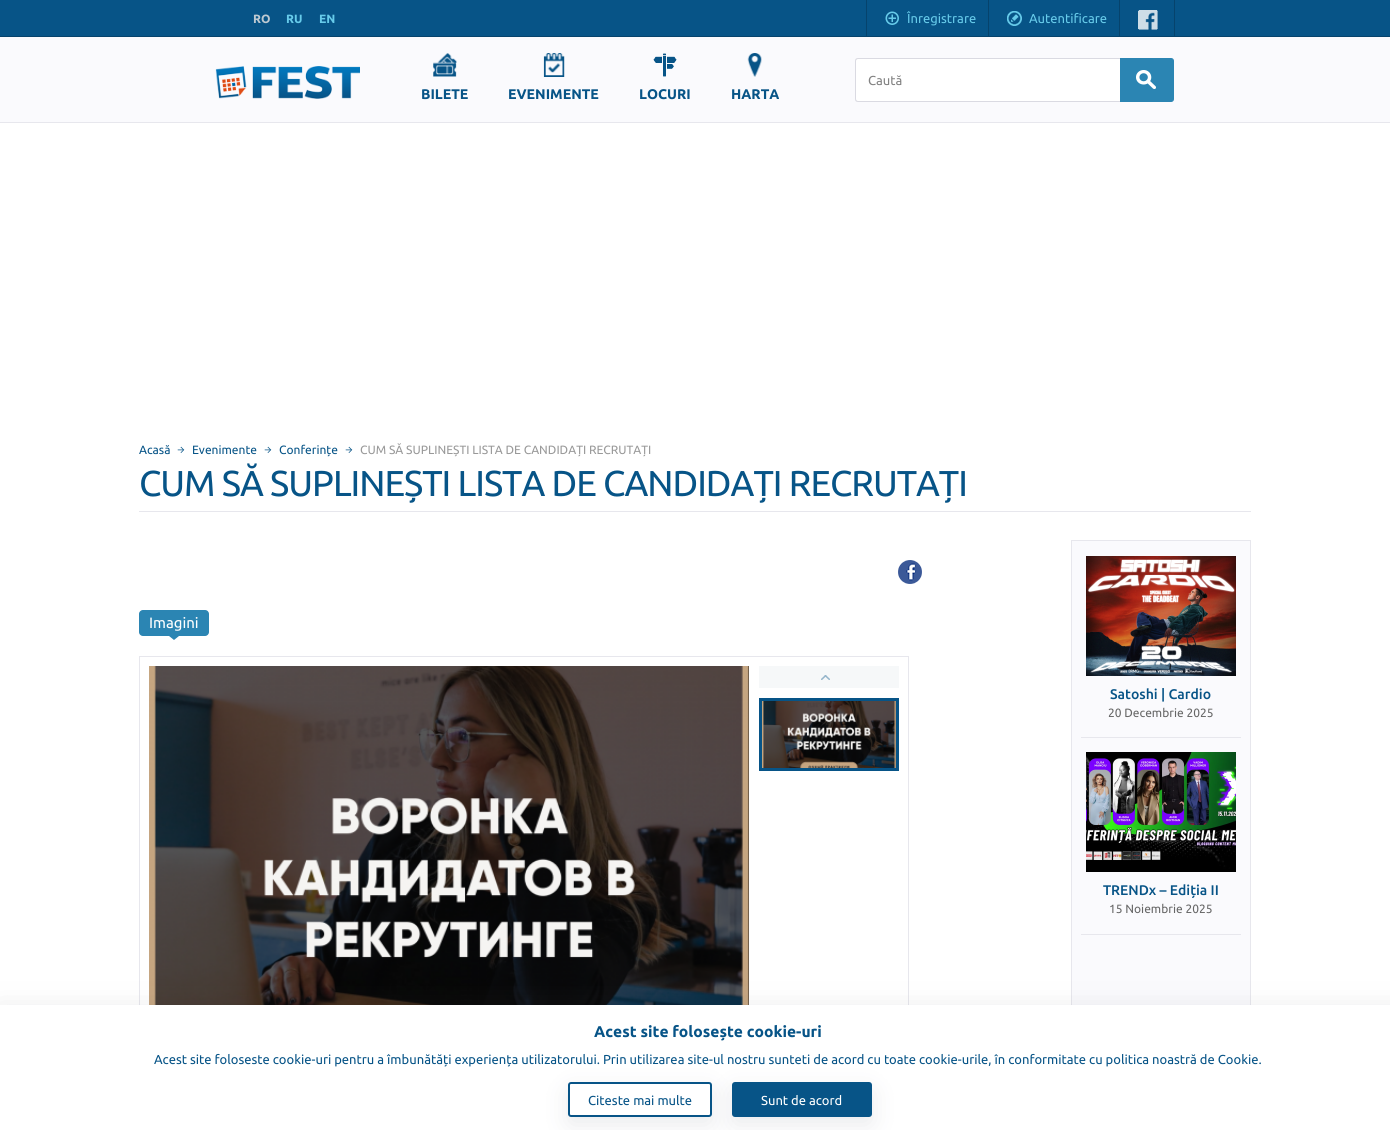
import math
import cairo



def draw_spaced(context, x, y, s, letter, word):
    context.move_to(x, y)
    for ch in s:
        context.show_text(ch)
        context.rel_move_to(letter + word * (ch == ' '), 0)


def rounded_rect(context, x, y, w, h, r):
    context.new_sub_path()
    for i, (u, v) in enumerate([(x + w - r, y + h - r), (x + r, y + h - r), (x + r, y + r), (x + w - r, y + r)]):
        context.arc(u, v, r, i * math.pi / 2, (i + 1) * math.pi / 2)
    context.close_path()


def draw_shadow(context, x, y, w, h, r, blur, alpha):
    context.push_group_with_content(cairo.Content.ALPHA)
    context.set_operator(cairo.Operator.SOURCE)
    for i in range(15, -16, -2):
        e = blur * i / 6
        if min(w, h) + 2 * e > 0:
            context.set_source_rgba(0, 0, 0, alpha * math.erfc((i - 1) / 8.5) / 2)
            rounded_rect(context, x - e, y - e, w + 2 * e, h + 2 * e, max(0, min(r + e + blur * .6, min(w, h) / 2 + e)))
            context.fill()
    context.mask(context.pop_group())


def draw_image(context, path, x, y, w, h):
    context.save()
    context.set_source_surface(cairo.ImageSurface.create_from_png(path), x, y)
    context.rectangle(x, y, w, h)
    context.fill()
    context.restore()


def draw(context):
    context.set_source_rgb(1, 1, 1)
    context.paint()
    context.set_source_rgb(7 / 255, 84 / 255, 135 / 255)
    context.rectangle(0, 0, 1390, 36)
    context.fill()
    context.set_source_rgb(6 / 255, 67 / 255, 108 / 255)
    context.rectangle(0, 36, 1390, 1)
    context.fill()
    context.rectangle(988, 0, 1, 36)
    context.fill()
    context.rectangle(866, 0, 1, 36)
    context.fill()
    draw_image(context, "images/1.png", 885, 11, 14, 14)
    context.rectangle(1119, 0, 1, 36)
    context.fill()
    draw_image(context, "images/2.png", 1007, 11, 15, 15)
    context.rectangle(1174, 0, 1, 36)
    context.fill()
    draw_image(context, "images/3.png", 1138, 10, 20, 20)
    context.set_source_rgb(250 / 255, 250 / 255, 253 / 255)
    context.rectangle(0, 37, 1390, 85)
    context.fill()
    context.set_source_rgb(231 / 255, 231 / 255, 237 / 255)
    context.rectangle(0, 122, 1390, 1)
    context.fill()
    draw_image(context, "images/4.png", 215, 66, 145, 33)
    context.set_source_rgb(1, 1, 1)
    context.new_path()
    context.move_to(858, 58)
    context.line_to(1120, 58)
    context.line_to(1120, 102)
    context.line_to(858, 102)
    context.curve_to(856.5, 102, 855, 100.5, 855, 99)
    context.line_to(855, 61)
    context.curve_to(855, 59.5, 856.5, 58, 858, 58)
    context.close_path()
    context.fill()
    context.set_source_rgb(218 / 255, 218 / 255, 226 / 255)
    context.set_fill_rule(cairo.FillRule.EVEN_ODD)
    context.new_path()
    context.move_to(858, 58)
    context.line_to(1120, 58)
    context.line_to(1120, 102)
    context.line_to(858, 102)
    context.curve_to(856, 102, 855, 101, 855, 99)
    context.line_to(855, 61)
    context.curve_to(855, 59, 856, 58, 858, 58)
    context.close_path()
    context.move_to(858, 59)
    context.line_to(1120, 59)
    context.line_to(1120, 101)
    context.line_to(858, 101)
    context.curve_to(857, 101, 856, 100, 856, 99)
    context.line_to(856, 61)
    context.curve_to(856, 60, 857, 59, 858, 59)
    context.close_path()
    context.fill()
    context.set_source_rgb(43 / 255, 133 / 255, 179 / 255)
    context.new_path()
    context.move_to(1120.5, 58.5)
    context.line_to(1171, 58.5)
    context.curve_to(1172.5, 58.5, 1173.5, 59.5, 1173.5, 61)
    context.line_to(1173.5, 99)
    context.curve_to(1173.5, 100.5, 1172.5, 101.5, 1171, 101.5)
    context.line_to(1120.5, 101.5)
    context.close_path()
    context.fill_preserve()
    context.set_line_width(1)
    context.stroke()
    draw_image(context, "images/5.png", 1136, 70, 20, 19)
    draw_image(context, "images/6.png", 433, 53, 24, 24)
    draw_image(context, "images/7.png", 543, 53, 22, 24)
    draw_image(context, "images/8.png", 653, 53, 24, 24)
    draw_image(context, "images/9.png", 747, 53, 15, 24)
    draw_image(context, "images/10.png", 177, 446, 8, 7)
    draw_image(context, "images/10.png", 264, 446, 8, 7)
    draw_image(context, "images/10.png", 345, 446, 8, 7)
    context.set_source_rgb(231 / 255, 231 / 255, 237 / 255)
    context.rectangle(139, 511, 1112, 1)
    context.fill()
    draw_image(context, "images/11.png", 898, 560, 24, 24)
    context.set_source_rgb(43 / 255, 133 / 255, 179 / 255)
    rounded_rect(context, 139, 610, 70, 26, 4)
    context.fill()
    context.set_fill_rule(cairo.FillRule.WINDING)
    context.new_path()
    context.move_to(169, 636)
    context.line_to(179, 636)
    context.line_to(174, 640)
    context.close_path()
    context.fill()
    context.new_path()
    context.move_to(170, 636)
    context.line_to(178, 636)
    context.line_to(174, 639)
    context.close_path()
    context.fill()
    context.rectangle(139.5, 656.5, 769, 469)
    context.set_source_rgb(231 / 255, 231 / 255, 237 / 255)
    context.stroke()
    draw_image(context, "images/12.png", 149, 666, 600, 339)
    context.set_source_rgb(246 / 255, 248 / 255, 249 / 255)
    context.rectangle(759, 666, 140, 22)
    context.fill()
    draw_image(context, "images/13.png", 821, 675, 9, 5)
    draw_image(context, "images/14.png", 762, 701, 134, 67)
    context.rectangle(760.5, 699.5, 137, 70)
    context.set_source_rgb(7 / 255, 84 / 255, 135 / 255)
    context.set_line_width(3)
    context.stroke()
    context.set_source_rgb(250 / 255, 250 / 255, 253 / 255)
    context.rectangle(1072, 541, 178, 464)
    context.fill()
    context.rectangle(1071.5, 540.5, 179, 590)
    context.set_source_rgb(231 / 255, 231 / 255, 237 / 255)
    context.set_line_width(1)
    context.stroke()
    draw_image(context, "images/15.png", 1086, 556, 150, 120)
    context.rectangle(1081, 737, 160, 1)
    context.fill()
    draw_image(context, "images/16.png", 1086, 752, 150, 120)
    context.rectangle(1081, 934, 160, 1)
    context.fill()
    context.set_source_rgb(100 / 255, 100 / 255, 111 / 255)
    draw_shadow(context, 0, 1012, 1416, 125, 0, 14.5, 0.2)
    context.set_source_rgb(1, 1, 1)
    context.rectangle(0, 1005, 1390, 125)
    context.fill()
    context.save()
    context.set_fill_rule(cairo.FillRule.EVEN_ODD)
    context.new_path()
    context.move_to(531, 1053)
    context.line_to(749, 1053)
    context.line_to(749, 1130)
    context.line_to(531, 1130)
    context.close_path()
    context.move_to(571, 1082)
    context.line_to(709, 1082)
    context.curve_to(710.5, 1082, 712, 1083.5, 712, 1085)
    context.line_to(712, 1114)
    context.curve_to(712, 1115.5, 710.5, 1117, 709, 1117)
    context.line_to(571, 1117)
    context.curve_to(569.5, 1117, 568, 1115.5, 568, 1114)
    context.line_to(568, 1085)
    context.curve_to(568, 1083.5, 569.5, 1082, 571, 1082)
    context.close_path()
    context.clip()
    context.set_source_rgb(149 / 255, 157 / 255, 165 / 255)
    draw_shadow(context, 568, 1090, 144, 35, 3, 12, 0.2)
    context.restore()
    rounded_rect(context, 569, 1083, 142, 33, 2)
    context.set_source_rgb(7 / 255, 84 / 255, 135 / 255)
    context.set_line_width(2)
    context.stroke()
    context.set_source_rgb(149 / 255, 157 / 255, 165 / 255)
    draw_shadow(context, 732, 1090, 140, 35, 3, 12, 0.2)
    context.set_source_rgb(7 / 255, 84 / 255, 135 / 255)
    rounded_rect(context, 733, 1083, 138, 33, 2)
    context.fill_preserve()
    context.stroke()
    context.select_font_face("Ubuntu", cairo.FontSlant.NORMAL, cairo.FontWeight.BOLD)
    context.set_font_size(12)
    context.set_source_rgb(189 / 255, 201 / 255, 209 / 255)
    context.move_to(253, 23)
    context.show_text("RO")
    context.set_source_rgb(103 / 255, 203 / 255, 234 / 255)
    context.move_to(286, 23)
    context.show_text("RU")
    context.move_to(319, 23)
    context.show_text("EN")
    context.select_font_face("Ubuntu")
    context.set_font_size(13)
    context.move_to(907, 23)
    context.show_text("Înregistrare")
    context.move_to(1029, 23)
    context.show_text("Autentificare")
    context.set_source_rgb(130 / 255, 130 / 255, 130 / 255)
    context.move_to(868, 85)
    context.show_text("Caută")
    context.select_font_face("Ubuntu", cairo.FontSlant.NORMAL, cairo.FontWeight.BOLD)
    context.set_font_size(14)
    context.set_source_rgb(7 / 255, 84 / 255, 135 / 255)
    context.move_to(421, 99)
    context.show_text("BILETE")
    context.move_to(508, 99)
    context.show_text("EVENIMENTE")
    context.move_to(639, 99)
    context.show_text("LOCURI")
    context.move_to(731, 99)
    context.show_text("HARTA")
    context.select_font_face("Ubuntu")
    context.set_font_size(12)
    context.move_to(139, 454)
    context.show_text("Acasă")
    context.move_to(192, 454)
    context.show_text("Evenimente")
    context.move_to(279, 454)
    context.show_text("Conferințe")
    context.set_source_rgb(153 / 255, 153 / 255, 153 / 255)
    context.move_to(360, 454)
    context.show_text("CUM SĂ SUPLINEȘTI LISTA DE CANDIDAȚI RECRUTAȚI")
    context.set_font_size(36)
    context.set_source_rgb(7 / 255, 84 / 255, 135 / 255)
    draw_spaced(context, 139, 496, "CUM SĂ SUPLINEȘTI LISTA DE CANDIDAȚI RECRUTAȚI", -1, 0)
    context.set_font_size(15)
    context.set_source_rgb(1, 1, 1)
    context.move_to(149, 628)
    context.show_text("Imagini")
    context.select_font_face("Ubuntu Medium")
    context.set_font_size(14)
    context.set_source_rgb(7 / 255, 84 / 255, 135 / 255)
    context.move_to(1110, 699)
    context.show_text("Satoshi | Cardio")
    context.select_font_face("Ubuntu")
    context.set_font_size(12)
    context.set_source_rgb(102 / 255, 102 / 255, 102 / 255)
    context.move_to(1108, 717)
    context.show_text("20 Decembrie 2025")
    context.select_font_face("Ubuntu Medium")
    context.set_font_size(14)
    context.set_source_rgb(7 / 255, 84 / 255, 135 / 255)
    context.move_to(1103, 895)
    context.show_text("TRENDx – Ediția II")
    context.select_font_face("Ubuntu")
    context.set_font_size(12)
    context.set_source_rgb(102 / 255, 102 / 255, 102 / 255)
    context.move_to(1109, 913)
    context.show_text("15 Noiembrie 2025")
    context.select_font_face("Ubuntu", cairo.FontSlant.NORMAL, cairo.FontWeight.BOLD)
    context.set_font_size(15.6)
    context.set_source_rgb(7 / 255, 84 / 255, 135 / 255)
    context.move_to(594, 1037)
    context.show_text("Acest site folosește cookie-uri")
    context.select_font_face("Ubuntu")
    context.set_font_size(13)
    context.move_to(154, 1064)
    context.show_text("Acest site foloseste cookie-uri pentru a îmbunătăți experiența utilizatorului. Prin utilizarea site-ul nostru sunteti de acord cu toate cookie-urile, în conformitate cu politica noastră de Cookie.")
    context.move_to(588, 1105)
    context.show_text("Citeste mai multe")
    context.set_source_rgb(1, 1, 1)
    context.move_to(761, 1105)
    context.show_text("Sunt de acord")


surface = cairo.ImageSurface(cairo.Format.RGB24, 1390, 1130)
context = cairo.Context(surface)
options = cairo.FontOptions()
options.set_hint_metrics(cairo.HintMetrics.OFF)
options.set_hint_style(cairo.HintStyle.NONE)
context.set_font_options(options)
context.set_miter_limit(4)
draw(context)
surface.write_to_png("out.png")
